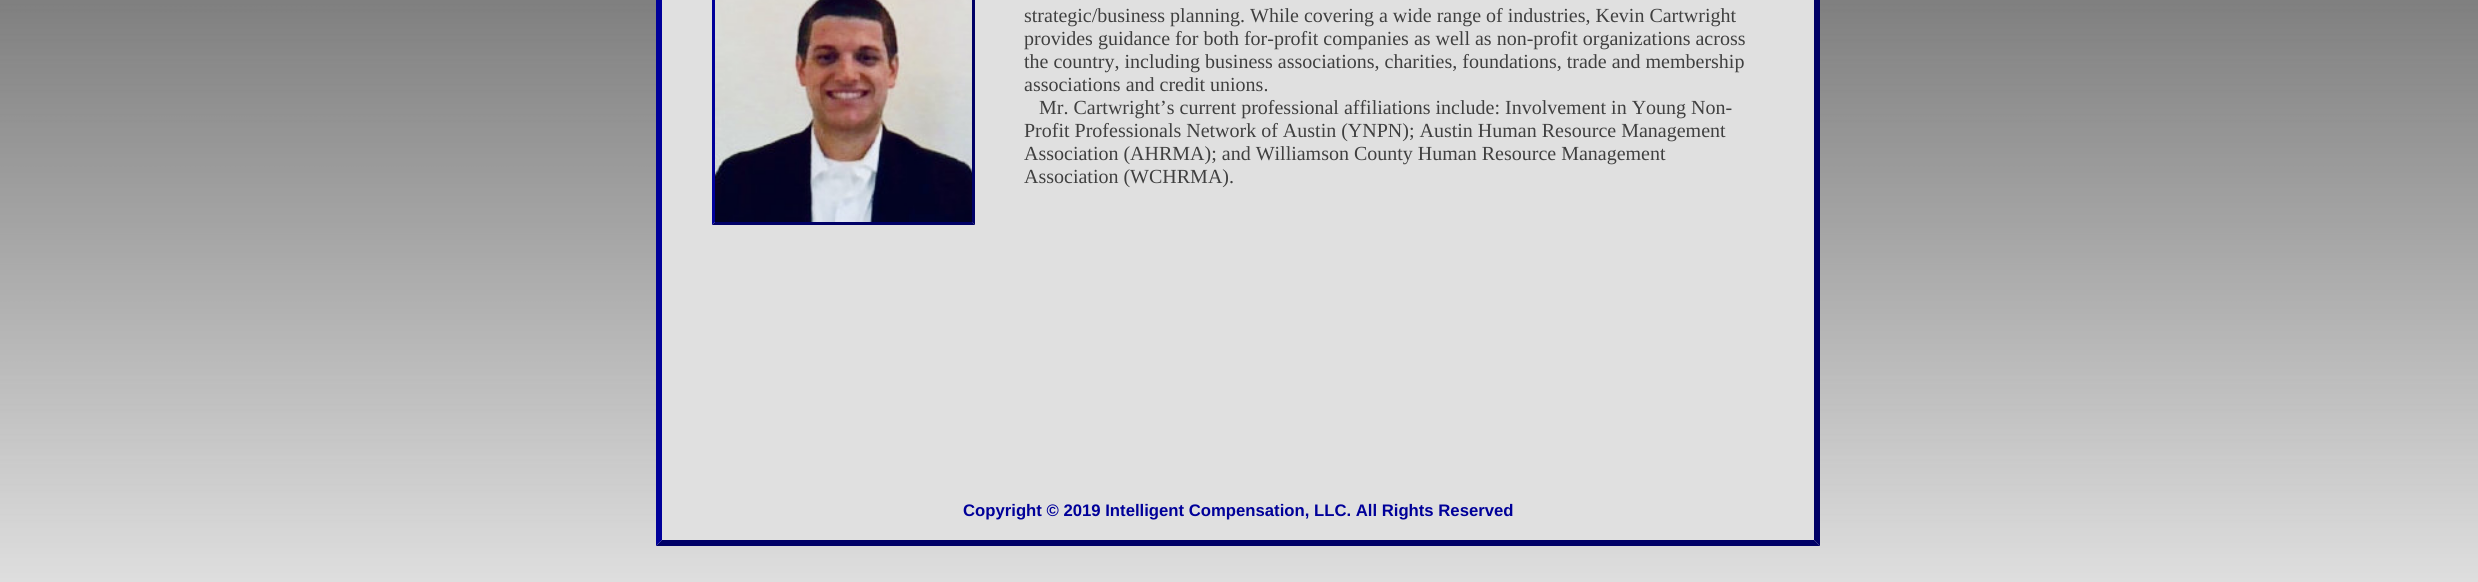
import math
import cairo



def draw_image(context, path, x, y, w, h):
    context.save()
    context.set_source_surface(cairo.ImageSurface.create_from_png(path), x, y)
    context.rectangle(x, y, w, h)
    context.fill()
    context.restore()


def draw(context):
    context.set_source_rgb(1, 1, 1)
    context.paint()
    draw_image(context, "images/1.png", 0, 0, 2478, 582)
    context.set_source_rgb(224 / 255, 224 / 255, 224 / 255)
    context.rectangle(656, 0, 1164, 546)
    context.fill()
    context.set_source_rgb(0, 0, 102 / 255)
    context.new_path()
    context.move_to(1820, -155)
    context.line_to(1820, 546)
    context.line_to(1814, 540)
    context.line_to(1814, -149)
    context.close_path()
    context.fill()
    context.new_path()
    context.move_to(1820, 546)
    context.line_to(656, 546)
    context.line_to(662, 540)
    context.line_to(1814, 540)
    context.close_path()
    context.fill()
    context.set_source_rgb(0, 0, 153 / 255)
    context.new_path()
    context.move_to(656, 546)
    context.line_to(656, -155)
    context.line_to(662, -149)
    context.line_to(662, 540)
    context.close_path()
    context.fill()
    draw_image(context, "images/2.png", 715, 0, 258, 223)
    context.set_source_rgb(0, 0, 102 / 255)
    context.new_path()
    context.move_to(975, -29)
    context.line_to(975, 225)
    context.line_to(972, 222)
    context.line_to(972, -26)
    context.close_path()
    context.fill()
    context.new_path()
    context.move_to(975, 225)
    context.line_to(712, 225)
    context.line_to(715, 222)
    context.line_to(972, 222)
    context.close_path()
    context.fill()
    context.set_source_rgb(0, 0, 153 / 255)
    context.new_path()
    context.move_to(712, 225)
    context.line_to(712, -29)
    context.line_to(715, -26)
    context.line_to(715, 222)
    context.close_path()
    context.fill()
    context.select_font_face("Liberation Serif")
    context.set_font_size(20)
    context.set_source_rgb(64 / 255, 64 / 255, 64 / 255)
    context.move_to(1024, 22)
    context.show_text("strategic/business planning. While covering a wide range of industries, Kevin Cartwright")
    context.move_to(1024, 45)
    context.show_text("provides guidance for both for-profit companies as well as non-profit organizations across")
    context.move_to(1024, 68)
    context.show_text("the country, including business associations, charities, foundations, trade and membership")
    context.move_to(1024, 91)
    context.show_text("associations and credit unions.")
    context.move_to(1039, 114)
    context.show_text("Mr. Cartwright’s current professional affiliations include: Involvement in Young Non-")
    context.move_to(1024, 137)
    context.show_text("Profit Professionals Network of Austin (YNPN); Austin Human Resource Management")
    context.move_to(1024, 160)
    context.show_text("Association (AHRMA); and Williamson County Human Resource Management")
    context.move_to(1024, 183)
    context.show_text("Association (WCHRMA).")
    context.select_font_face("Liberation Sans", cairo.FontSlant.NORMAL, cairo.FontWeight.BOLD)
    context.set_font_size(16.7)
    context.set_source_rgb(0, 0, 153 / 255)
    context.move_to(963, 516)
    context.show_text("Copyright © 2019 Intelligent Compensation, LLC. All Rights Reserved")


surface = cairo.ImageSurface(cairo.Format.RGB24, 2478, 582)
context = cairo.Context(surface)
options = cairo.FontOptions()
options.set_hint_metrics(cairo.HintMetrics.OFF)
options.set_hint_style(cairo.HintStyle.NONE)
context.set_font_options(options)
context.set_miter_limit(4)
draw(context)
surface.write_to_png("out.png")
